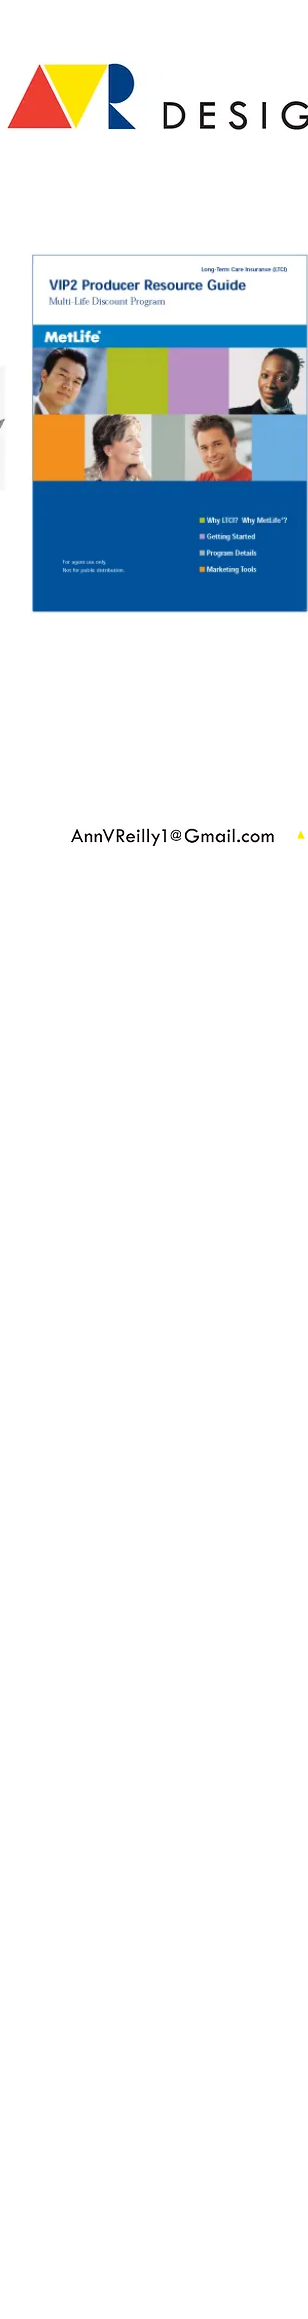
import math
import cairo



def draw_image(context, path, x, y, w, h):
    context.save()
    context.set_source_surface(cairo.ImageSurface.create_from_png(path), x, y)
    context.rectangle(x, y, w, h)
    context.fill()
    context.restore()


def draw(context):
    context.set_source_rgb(1, 1, 1)
    context.paint()
    draw_image(context, "images/1.png", 5, 61, 303, 70)
    draw_image(context, "images/2.png", 0, 365, 7, 126)
    draw_image(context, "images/3.png", 30, 252, 278, 366)
    draw_image(context, "images/4.png", 71, 827, 208, 19)
    draw_image(context, "images/5.png", 279, 828, 29, 18)
    draw_image(context, "images/6.png", 298, 828, 10, 13)


surface = cairo.ImageSurface(cairo.Format.RGB24, 308, 2319)
context = cairo.Context(surface)
options = cairo.FontOptions()
options.set_hint_metrics(cairo.HintMetrics.OFF)
options.set_hint_style(cairo.HintStyle.NONE)
context.set_font_options(options)
context.set_miter_limit(4)
draw(context)
surface.write_to_png("out.png")
